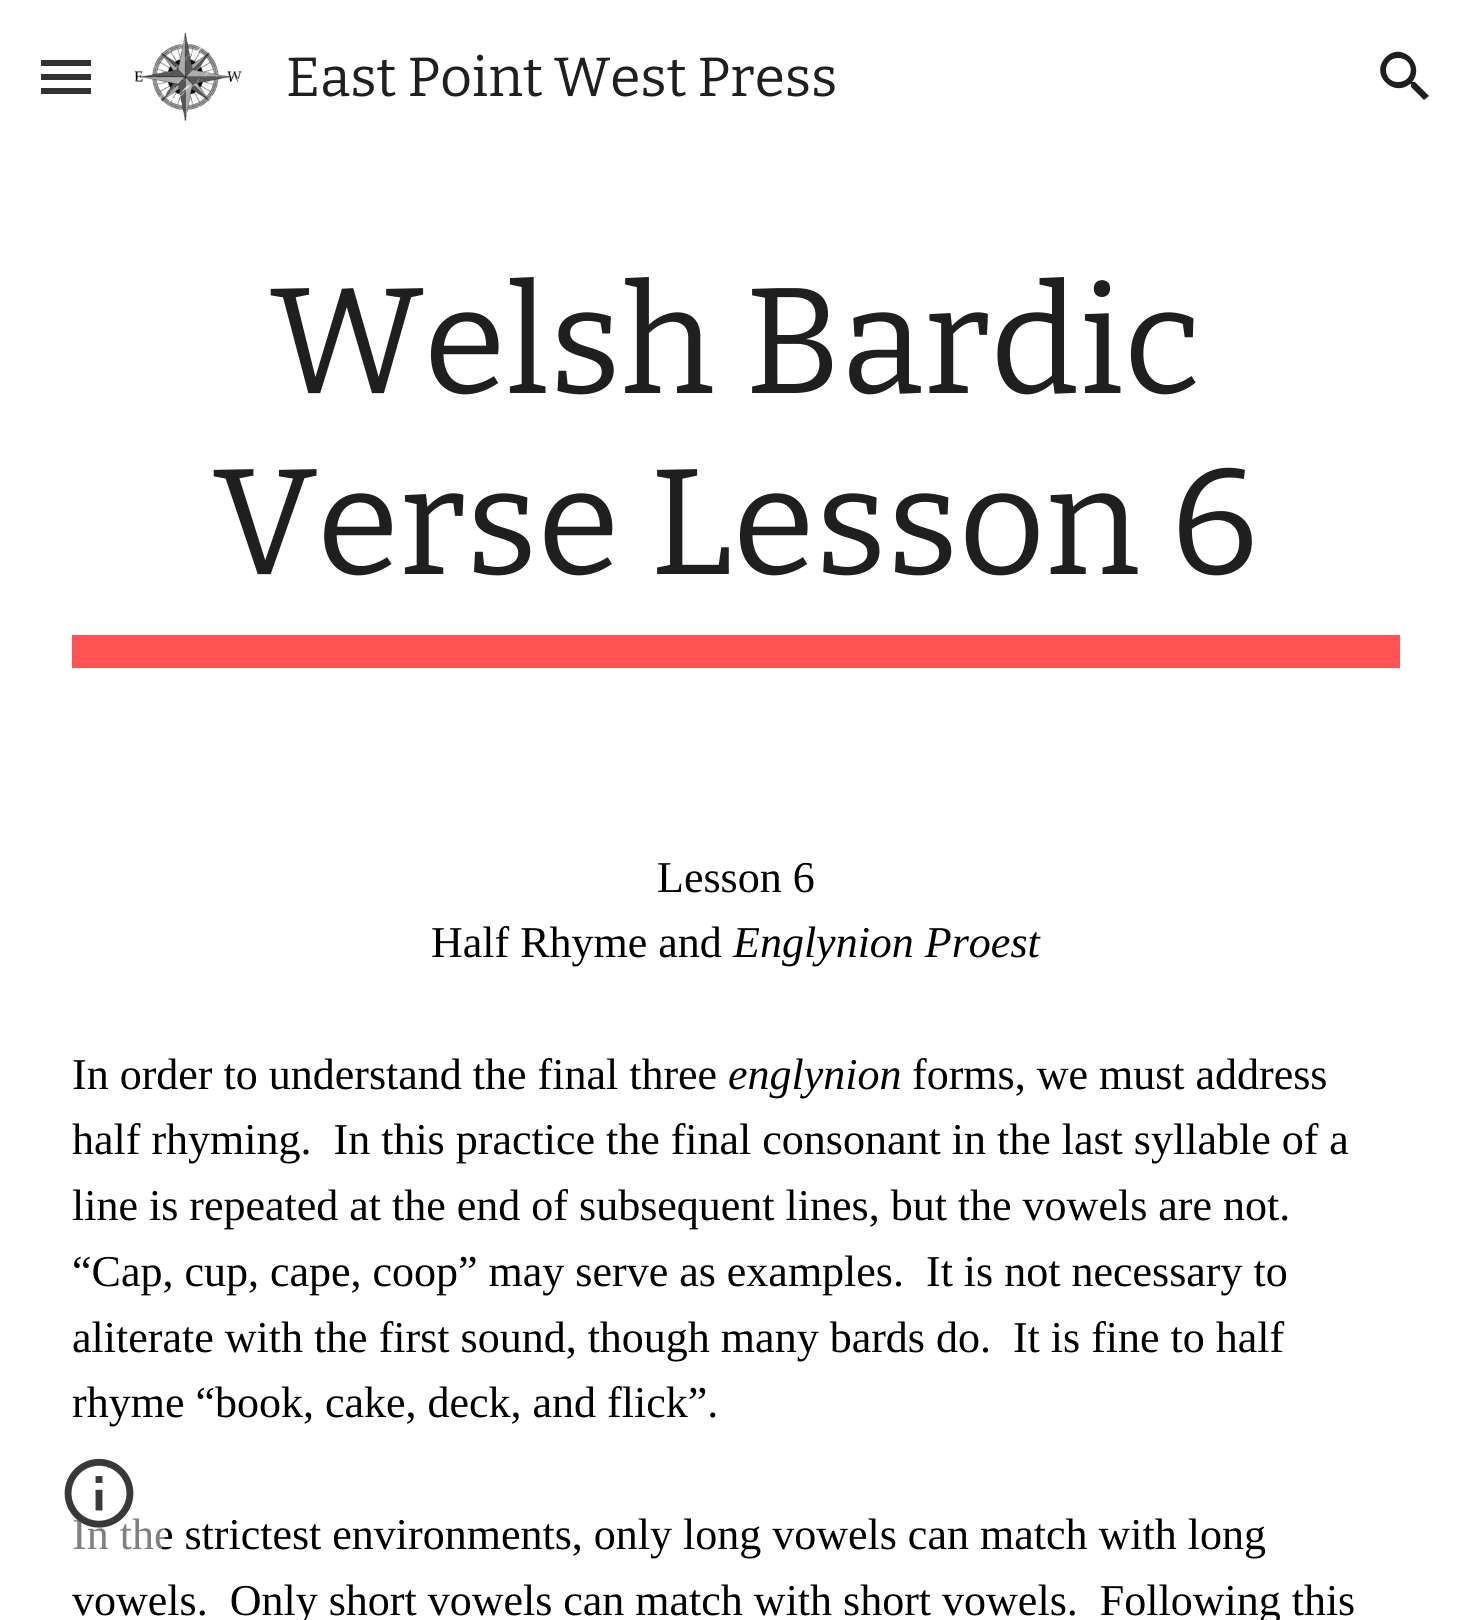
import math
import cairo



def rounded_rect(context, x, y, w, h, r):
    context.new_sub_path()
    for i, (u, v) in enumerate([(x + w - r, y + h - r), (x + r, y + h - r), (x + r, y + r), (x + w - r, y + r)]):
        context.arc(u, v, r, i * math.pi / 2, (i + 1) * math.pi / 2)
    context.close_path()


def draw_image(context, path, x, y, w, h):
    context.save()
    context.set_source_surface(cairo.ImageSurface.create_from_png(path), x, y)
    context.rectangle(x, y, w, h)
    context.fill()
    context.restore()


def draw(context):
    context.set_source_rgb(1, 1, 1)
    context.paint()
    context.set_source_rgb(50 / 255, 50 / 255, 50 / 255)
    context.rectangle(41, 60, 50, 6)
    context.fill()
    context.rectangle(41, 74, 50, 6)
    context.fill()
    context.rectangle(41, 88, 50, 6)
    context.fill()
    draw_image(context, "images/1.png", 134, 33, 108, 88)
    context.set_source_rgb(31 / 255, 31 / 255, 31 / 255)
    context.new_path()
    context.move_to(1415, 82)
    context.line_to(1413, 82)
    context.line_to(1412, 82)
    context.curve_to(1426, 65, 1402, 41, 1386, 57)
    context.curve_to(1369, 74, 1393, 98, 1410, 84)
    context.line_to(1411, 84)
    context.line_to(1411, 87)
    context.line_to(1424, 100)
    context.line_to(1429, 96)
    context.close_path()
    context.move_to(1398, 82)
    context.curve_to(1382, 82, 1382, 58, 1398, 58)
    context.curve_to(1415, 58, 1415, 82, 1398, 82)
    context.close_path()
    context.fill()
    context.set_source_rgb(1, 82 / 255, 82 / 255)
    context.rectangle(72, 635, 1328, 33)
    context.fill()
    context.select_font_face("Bitter")
    context.set_font_size(55)
    context.set_source_rgb(31 / 255, 31 / 255, 31 / 255)
    context.move_to(286, 96)
    context.show_text("East Point West Press")
    context.set_font_size(150.25)
    context.move_to(270, 393)
    context.show_text("Welsh Bardic")
    context.move_to(213, 574)
    context.show_text("Verse Lesson 6")
    context.select_font_face("Liberation Serif")
    context.set_font_size(44)
    context.set_source_rgb(0, 0, 0)
    context.move_to(657, 892)
    context.show_text("Lesson 6")
    context.move_to(431, 957)
    context.show_text("Half Rhyme and")
    context.select_font_face("Liberation Serif", cairo.FontSlant.ITALIC)
    context.move_to(733, 957)
    context.show_text("Englynion Proest")
    context.select_font_face("Liberation Serif")
    context.move_to(72, 1089)
    context.show_text("In order to understand the final three")
    context.select_font_face("Liberation Serif", cairo.FontSlant.ITALIC)
    context.move_to(728, 1089)
    context.show_text("englynion")
    context.select_font_face("Liberation Serif")
    context.move_to(912, 1089)
    context.show_text("forms, we must address")
    context.move_to(72, 1154)
    context.show_text("half rhyming.  In this practice the final consonant in the last syllable of a")
    context.move_to(72, 1220)
    context.show_text("line is repeated at the end of subsequent lines, but the vowels are not.")
    context.move_to(72, 1286)
    context.show_text("“Cap, cup, cape, coop” may serve as examples.  It is not necessary to")
    context.move_to(72, 1352)
    context.show_text("aliterate with the first sound, though many bards do.  It is fine to half")
    context.move_to(72, 1417)
    context.show_text("rhyme “book, cake, deck, and flick”.")
    context.move_to(72, 1549)
    context.show_text("In the strictest environments, only long vowels can match with long")
    context.move_to(72, 1615)
    context.show_text("vowels.  Only short vowels can match with short vowels.  Following this")
    context.set_source_rgba(1, 1, 1, 0.5)
    rounded_rect(context, 33, 1447, 132, 132, 47)
    context.fill()
    draw_image(context, "images/2.png", 64, 1458, 70, 70)


surface = cairo.ImageSurface(cairo.Format.RGB24, 1470, 1620)
context = cairo.Context(surface)
options = cairo.FontOptions()
options.set_hint_metrics(cairo.HintMetrics.OFF)
options.set_hint_style(cairo.HintStyle.NONE)
context.set_font_options(options)
context.set_miter_limit(4)
draw(context)
surface.write_to_png("out.png")
